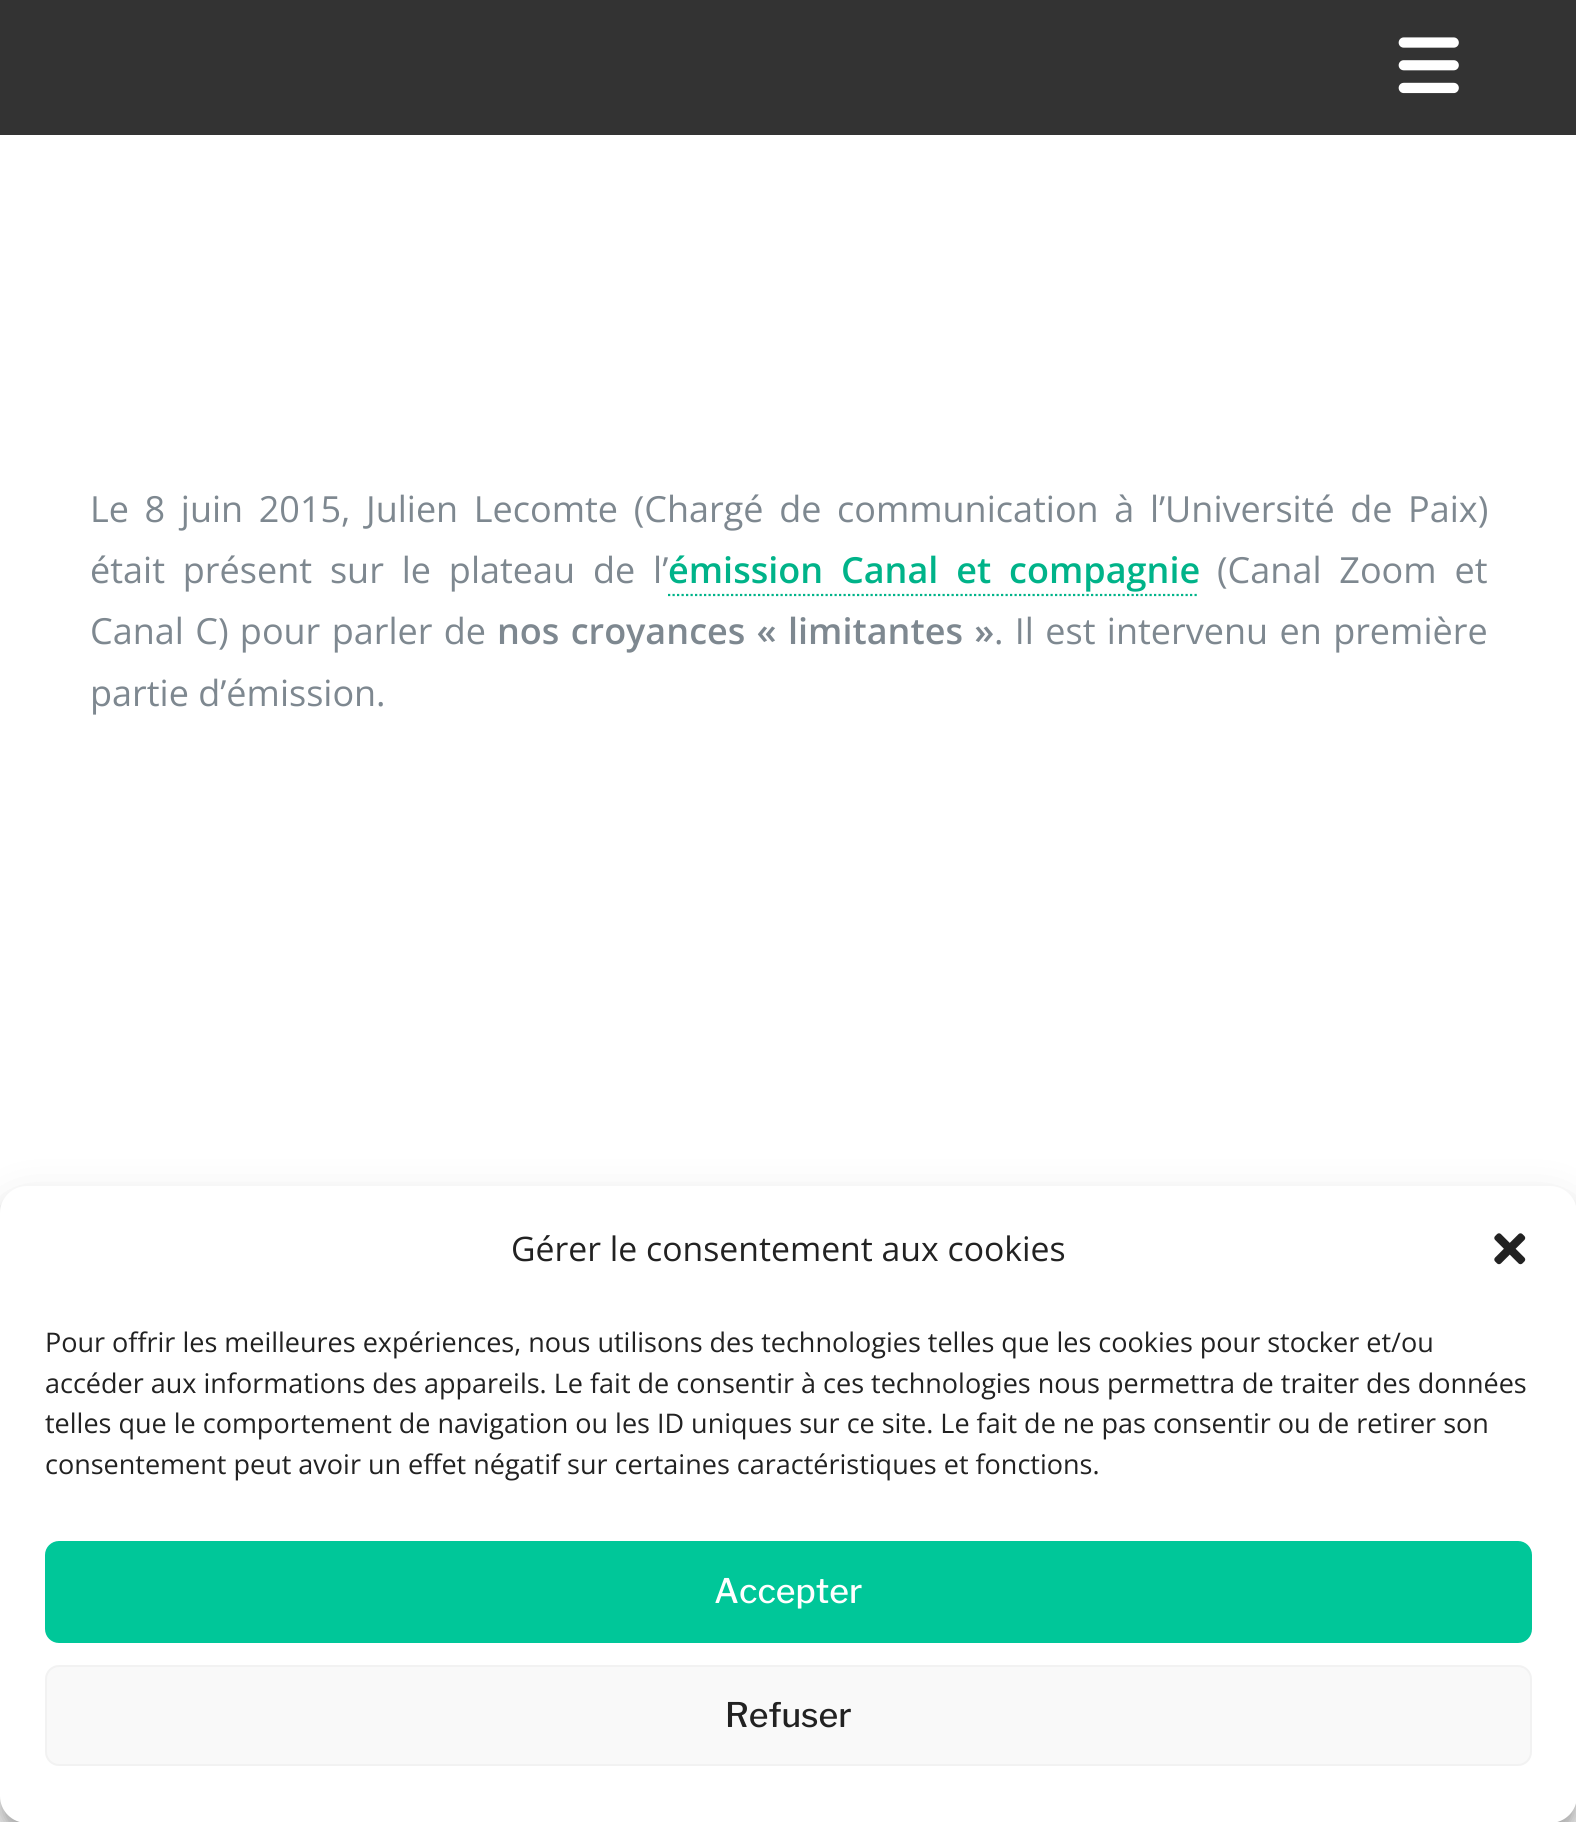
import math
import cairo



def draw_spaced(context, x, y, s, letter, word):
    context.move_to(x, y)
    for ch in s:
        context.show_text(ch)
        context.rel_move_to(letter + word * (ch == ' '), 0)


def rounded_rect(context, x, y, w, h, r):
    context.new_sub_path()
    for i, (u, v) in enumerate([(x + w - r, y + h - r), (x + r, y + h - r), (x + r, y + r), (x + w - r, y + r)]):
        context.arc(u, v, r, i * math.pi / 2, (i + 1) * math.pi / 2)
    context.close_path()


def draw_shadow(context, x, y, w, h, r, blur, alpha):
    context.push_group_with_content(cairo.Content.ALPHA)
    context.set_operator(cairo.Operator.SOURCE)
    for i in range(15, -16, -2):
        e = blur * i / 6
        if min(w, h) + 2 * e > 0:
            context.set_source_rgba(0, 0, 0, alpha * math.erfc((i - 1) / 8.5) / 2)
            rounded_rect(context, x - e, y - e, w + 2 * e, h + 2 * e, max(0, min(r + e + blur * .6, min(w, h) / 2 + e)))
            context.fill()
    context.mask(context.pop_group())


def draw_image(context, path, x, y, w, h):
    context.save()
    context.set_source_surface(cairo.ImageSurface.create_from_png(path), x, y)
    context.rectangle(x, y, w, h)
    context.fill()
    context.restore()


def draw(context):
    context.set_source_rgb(1, 1, 1)
    context.paint()
    context.set_source_rgb(51 / 255, 51 / 255, 51 / 255)
    context.rectangle(0, 0, 1576, 135)
    context.fill()
    draw_image(context, "images/1.png", 1398, 37, 61, 57)
    context.new_path()
    context.move_to(668, 595)
    context.line_to(1199, 595)
    context.set_source_rgb(0, 179 / 255, 137 / 255)
    context.set_line_width(2.2)
    context.set_dash([2.25, 2.25])
    context.stroke()
    context.set_source_rgb(0, 0, 0)
    draw_shadow(context, 0, 1199, 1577, 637, 27, 7, 0.23)
    draw_shadow(context, 0, 1208, 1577, 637, 27, 22.5, 0.19)
    context.set_source_rgb(1, 1, 1)
    rounded_rect(context, 0, 1186, 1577, 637, 27)
    context.fill()
    draw_image(context, "images/2.png", 1494, 1233, 32, 32)
    context.set_source_rgb(0, 199 / 255, 153 / 255)
    rounded_rect(context, 46, 1542, 1485, 100, 13)
    context.fill_preserve()
    context.set_line_width(2)
    context.set_dash([])
    context.stroke()
    context.set_source_rgb(249 / 255, 249 / 255, 249 / 255)
    rounded_rect(context, 46, 1666, 1485, 99, 13)
    context.fill_preserve()
    context.set_source_rgb(242 / 255, 242 / 255, 242 / 255)
    context.stroke()
    context.select_font_face("Open Sans")
    context.set_font_size(36)
    context.set_source_rgb(126 / 255, 136 / 255, 144 / 255)
    draw_spaced(context, 90, 522, "Le 8 juin 2015, Julien Lecomte (Chargé de communication à l’Université de Paix)", 0, 6.25)
    draw_spaced(context, 90, 583, "était présent sur le plateau de l’", 0, 8.5)
    context.select_font_face("Open Sans SemiBold")
    context.set_source_rgb(0, 179 / 255, 137 / 255)
    draw_spaced(context, 668, 583, "émission Canal et compagnie", 0, 8.5)
    context.select_font_face("Open Sans")
    context.set_source_rgb(126 / 255, 136 / 255, 144 / 255)
    draw_spaced(context, 1217, 583, "(Canal Zoom et", 0, 8.5)
    draw_spaced(context, 90, 644, "Canal C) pour parler de", 0, 2)
    context.select_font_face("Open Sans SemiBold")
    draw_spaced(context, 497, 644, "nos croyances « limitantes »", 0, 2)
    context.select_font_face("Open Sans")
    draw_spaced(context, 994, 644, ". Il est intervenu en première", 0, 2)
    context.move_to(90, 706)
    context.show_text("partie d’émission.")
    context.set_font_size(33.75)
    context.set_source_rgb(34 / 255, 34 / 255, 34 / 255)
    context.move_to(511, 1261)
    context.show_text("Gérer le consentement aux cookies")
    context.set_font_size(27)
    context.move_to(45, 1352)
    context.show_text("Pour offrir les meilleures expériences, nous utilisons des technologies telles que les cookies pour stocker et/ou")
    context.move_to(45, 1393)
    context.show_text("accéder aux informations des appareils. Le fait de consentir à ces technologies nous permettra de traiter des données")
    context.move_to(45, 1433)
    context.show_text("telles que le comportement de navigation ou les ID uniques sur ce site. Le fait de ne pas consentir ou de retirer son")
    context.move_to(45, 1474)
    context.show_text("consentement peut avoir un effet négatif sur certaines caractéristiques et fonctions.")
    context.select_font_face("Libre Franklin Medium")
    context.set_font_size(33.75)
    context.set_source_rgb(1, 1, 1)
    context.move_to(714, 1603)
    context.show_text("Accepter")
    context.set_source_rgb(34 / 255, 34 / 255, 34 / 255)
    context.move_to(725, 1727)
    context.show_text("Refuser")


surface = cairo.ImageSurface(cairo.Format.RGB24, 1576, 1822)
context = cairo.Context(surface)
options = cairo.FontOptions()
options.set_hint_metrics(cairo.HintMetrics.OFF)
options.set_hint_style(cairo.HintStyle.NONE)
context.set_font_options(options)
context.set_miter_limit(4)
draw(context)
surface.write_to_png("out.png")
